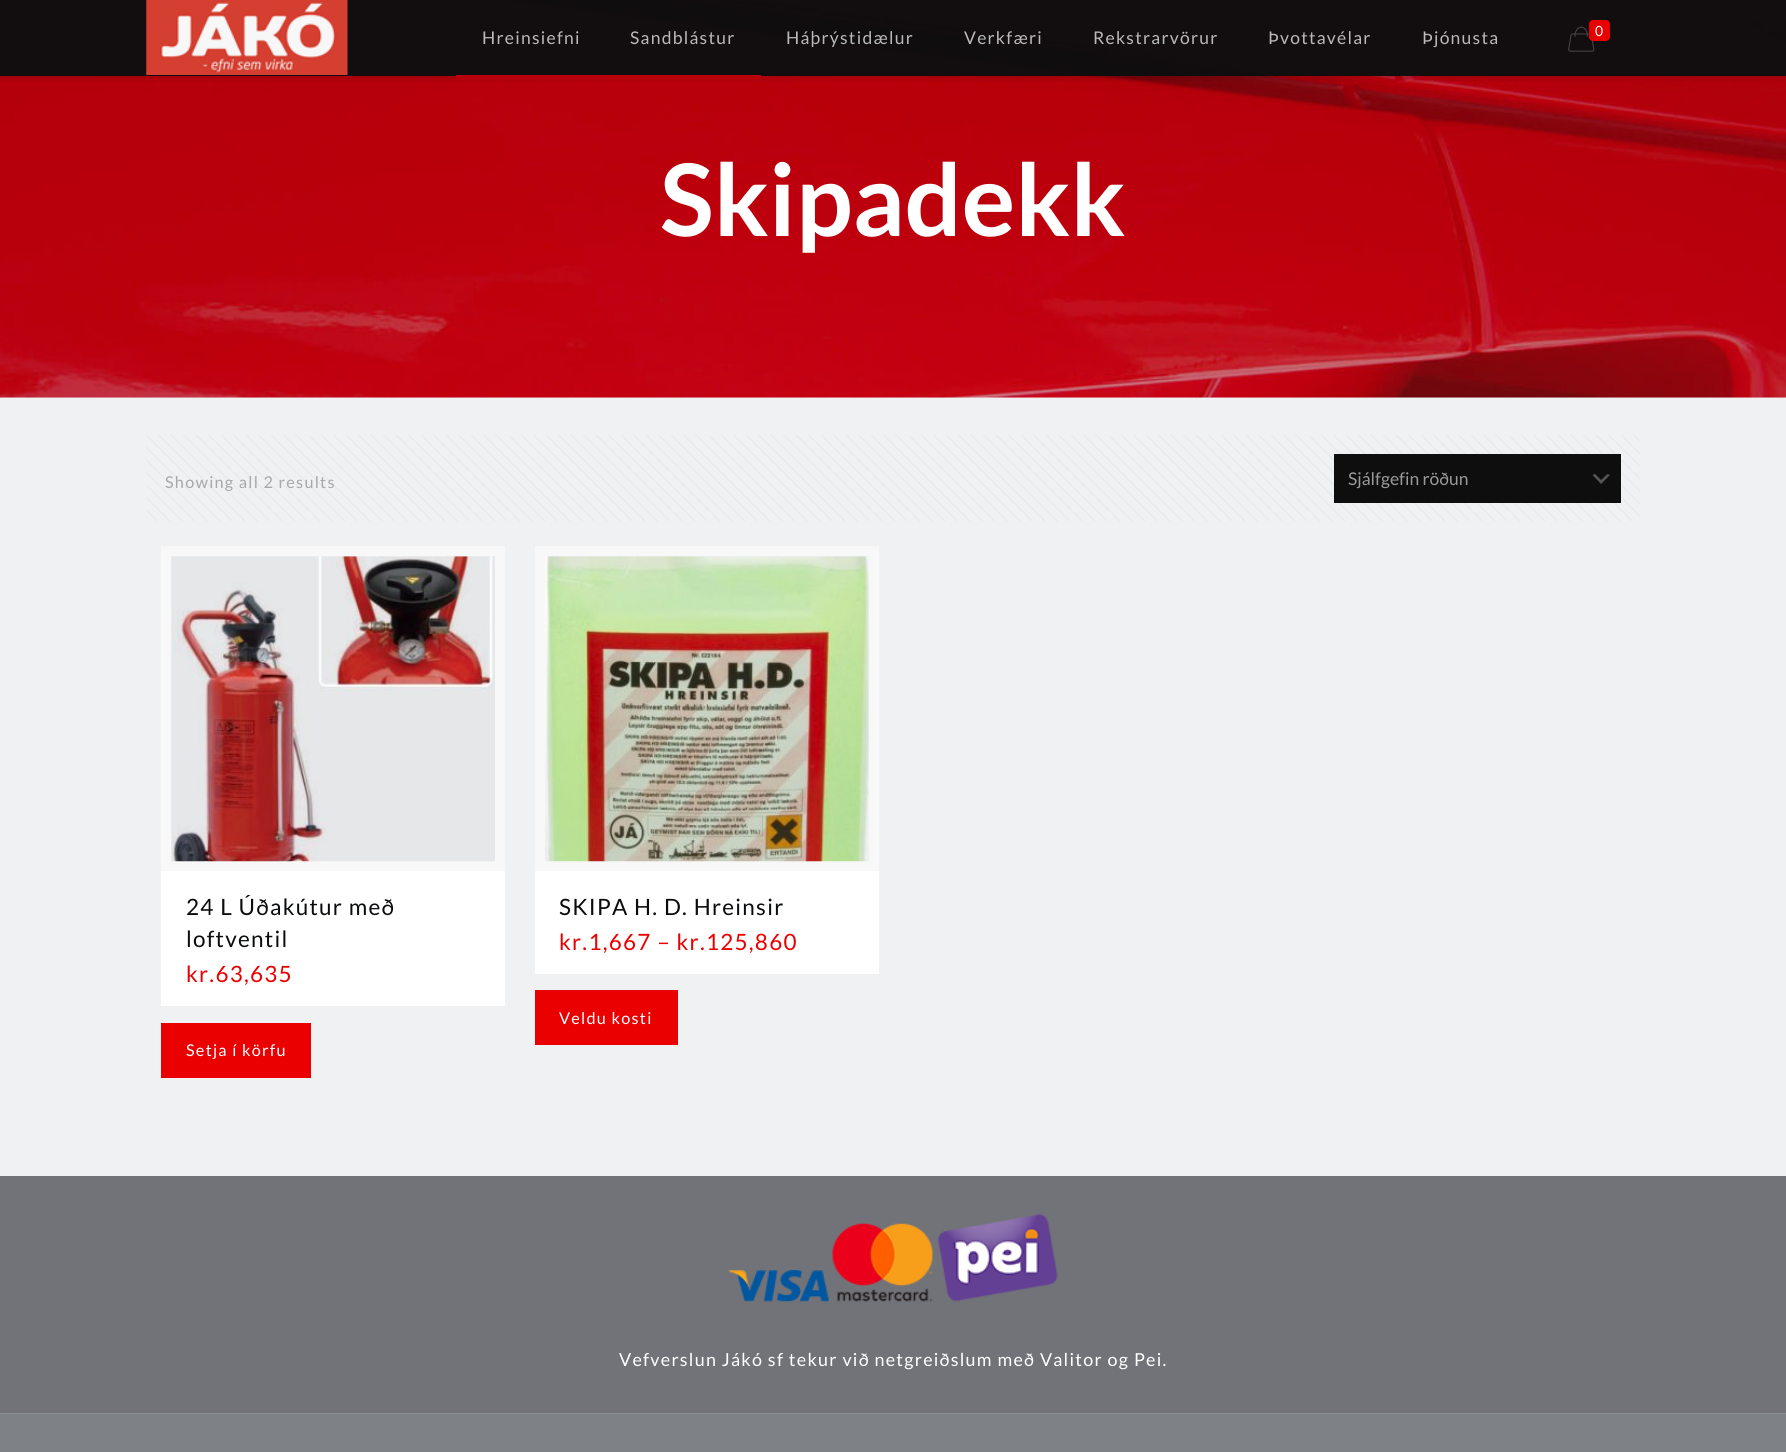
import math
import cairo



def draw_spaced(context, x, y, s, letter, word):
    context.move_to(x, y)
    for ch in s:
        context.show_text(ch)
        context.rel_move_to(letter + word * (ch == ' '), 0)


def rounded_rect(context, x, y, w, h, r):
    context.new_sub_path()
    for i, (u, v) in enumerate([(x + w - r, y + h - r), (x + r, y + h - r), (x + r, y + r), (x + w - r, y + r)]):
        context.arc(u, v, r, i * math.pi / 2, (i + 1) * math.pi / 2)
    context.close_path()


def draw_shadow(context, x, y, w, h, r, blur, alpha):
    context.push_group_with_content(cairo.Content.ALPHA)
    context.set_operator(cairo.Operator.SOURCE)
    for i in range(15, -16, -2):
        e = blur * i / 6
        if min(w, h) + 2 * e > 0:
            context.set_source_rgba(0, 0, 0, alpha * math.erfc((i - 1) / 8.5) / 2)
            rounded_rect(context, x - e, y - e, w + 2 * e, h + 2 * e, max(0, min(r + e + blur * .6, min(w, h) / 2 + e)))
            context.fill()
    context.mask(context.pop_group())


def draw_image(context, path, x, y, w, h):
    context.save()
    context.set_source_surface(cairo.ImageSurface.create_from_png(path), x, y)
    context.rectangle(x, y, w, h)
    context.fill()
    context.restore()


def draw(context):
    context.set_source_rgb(240 / 255, 241 / 255, 242 / 255)
    context.paint()
    context.set_source_rgb(230 / 255, 231 / 255, 232 / 255)
    context.rectangle(0, 397, 1786, 1)
    context.fill()
    draw_image(context, "images/1.png", 0, 0, 1786, 398)
    context.save()
    context.rectangle(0, 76, 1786, 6)
    context.clip()
    context.set_source_rgb(0, 0, 0)
    draw_shadow(context, 0, 3, 1786, 76, 0, 3, 0.1)
    context.restore()
    context.set_source_rgba(14 / 255, 14 / 255, 15 / 255, 0.97)
    context.rectangle(0, 0, 1786, 76)
    context.fill()
    draw_image(context, "images/2.png", 146, 0, 202, 75)
    context.set_source_rgb(183 / 255, 0, 12 / 255)
    context.rectangle(456, 75, 149, 5)
    context.fill()
    context.set_source_rgb(184 / 255, 0, 10 / 255)
    context.rectangle(605, 75, 156, 5)
    context.fill()
    draw_image(context, "images/3.png", 1568, 26, 27, 26)
    context.set_source_rgb(232 / 255, 0, 0)
    rounded_rect(context, 1589, 20, 21, 21, 4)
    context.fill()
    draw_image(context, "images/4.png", 146, 435, 1494, 86)
    context.set_source_rgb(14 / 255, 14 / 255, 15 / 255)
    context.rectangle(1334, 454, 287, 49)
    context.fill()
    context.set_source_rgb(85 / 255, 85 / 255, 85 / 255)
    context.new_path()
    context.move_to(1595, 474)
    context.line_to(1601, 480)
    context.line_to(1607.5, 474)
    context.line_to(1610, 475)
    context.line_to(1601, 484)
    context.line_to(1592.5, 475)
    context.close_path()
    context.fill()
    context.rectangle(166, 551, 334, 315)
    context.set_source_rgb(248 / 255, 248 / 255, 248 / 255)
    context.set_line_width(10)
    context.stroke()
    draw_image(context, "images/5.png", 171, 556, 324, 306)
    context.set_source_rgb(1, 1, 1)
    context.rectangle(161, 871, 344, 135)
    context.fill()
    context.set_source_rgb(234 / 255, 0, 0)
    context.rectangle(161, 1023, 150, 55)
    context.fill()
    context.rectangle(540, 551, 334, 315)
    context.set_source_rgb(248 / 255, 248 / 255, 248 / 255)
    context.stroke()
    draw_image(context, "images/6.png", 545, 556, 324, 306)
    context.set_source_rgb(1, 1, 1)
    context.rectangle(535, 871, 344, 103)
    context.fill()
    context.set_source_rgb(234 / 255, 0, 0)
    context.rectangle(535, 990, 143, 55)
    context.fill()
    context.set_source_rgb(126 / 255, 129 / 255, 134 / 255)
    context.rectangle(0, 1414, 1786, 38)
    context.fill()
    context.set_source_rgb(114 / 255, 115 / 255, 121 / 255)
    context.rectangle(0, 1176, 1786, 237)
    context.fill()
    draw_image(context, "images/7.png", 728, 1270, 101, 32)
    draw_image(context, "images/8.png", 832, 1223, 101, 79)
    draw_image(context, "images/9.png", 937, 1213, 121, 89)
    context.set_source_rgb(139 / 255, 142 / 255, 146 / 255)
    context.rectangle(0, 1413, 1786, 1)
    context.fill()
    context.select_font_face("Lato")
    context.set_font_size(17.5)
    context.set_source_rgb(186 / 255, 186 / 255, 186 / 255)
    draw_spaced(context, 482, 44, "Hreinsiefni", 1.25, 0)
    draw_spaced(context, 630, 44, "Sandblástur", 1.25, 0)
    draw_spaced(context, 786, 44, "Háþrýstidælur", 1.25, 0)
    draw_spaced(context, 964, 44, "Verkfæri", 1.25, 0)
    draw_spaced(context, 1093, 44, "Rekstrarvörur", 1.25, 0)
    draw_spaced(context, 1268, 44, "Þvottavélar", 1.25, 0)
    draw_spaced(context, 1422, 44, "Þjónusta", 1.25, 0)
    context.set_font_size(14)
    context.set_source_rgb(253 / 255, 247 / 255, 248 / 255)
    draw_spaced(context, 1595, 36, "0", 1.25, 0)
    context.select_font_face("Lato", cairo.FontSlant.NORMAL, cairo.FontWeight.BOLD)
    context.set_font_size(100)
    context.set_source_rgb(1, 1, 1)
    context.move_to(660, 236)
    context.show_text("Skipadekk")
    context.select_font_face("Lato")
    context.set_font_size(16.25)
    context.set_source_rgb(168 / 255, 168 / 255, 168 / 255)
    draw_spaced(context, 165, 488, "Showing all 2 results", 1.25, 0)
    context.set_font_size(17.5)
    context.set_source_rgb(154 / 255, 154 / 255, 154 / 255)
    context.move_to(1348, 485)
    context.show_text("Sjálfgefin röðun")
    context.set_font_size(22.5)
    context.set_source_rgb(11 / 255, 12 / 255, 14 / 255)
    draw_spaced(context, 186, 915, "24 L Úðakútur með", 1.25, 0)
    draw_spaced(context, 186, 947, "loftventil", 1.25, 0)
    context.set_source_rgb(234 / 255, 0, 0)
    draw_spaced(context, 186, 982, "kr.63,635", 1.25, 0)
    context.set_font_size(16.25)
    context.set_source_rgb(1, 1, 1)
    draw_spaced(context, 186, 1056, "Setja í körfu", 1.25, 0)
    context.set_font_size(22.5)
    context.set_source_rgb(11 / 255, 12 / 255, 14 / 255)
    draw_spaced(context, 559, 915, "SKIPA H. D. Hreinsir", 1.25, 0)
    context.set_source_rgb(234 / 255, 0, 0)
    draw_spaced(context, 559, 950, "kr.1,667 – kr.125,860", 1.25, 0)
    context.set_font_size(16.25)
    context.set_source_rgb(1, 1, 1)
    draw_spaced(context, 559, 1024, "Veldu kosti", 1.25, 0)
    context.set_font_size(17.9)
    draw_spaced(context, 619, 1366, "Vefverslun Jákó sf tekur við netgreiðslum með Valitor og Pei.", 1.25, 0)


surface = cairo.ImageSurface(cairo.Format.RGB24, 1786, 1452)
context = cairo.Context(surface)
options = cairo.FontOptions()
options.set_hint_metrics(cairo.HintMetrics.OFF)
options.set_hint_style(cairo.HintStyle.NONE)
context.set_font_options(options)
context.set_miter_limit(4)
draw(context)
surface.write_to_png("out.png")
